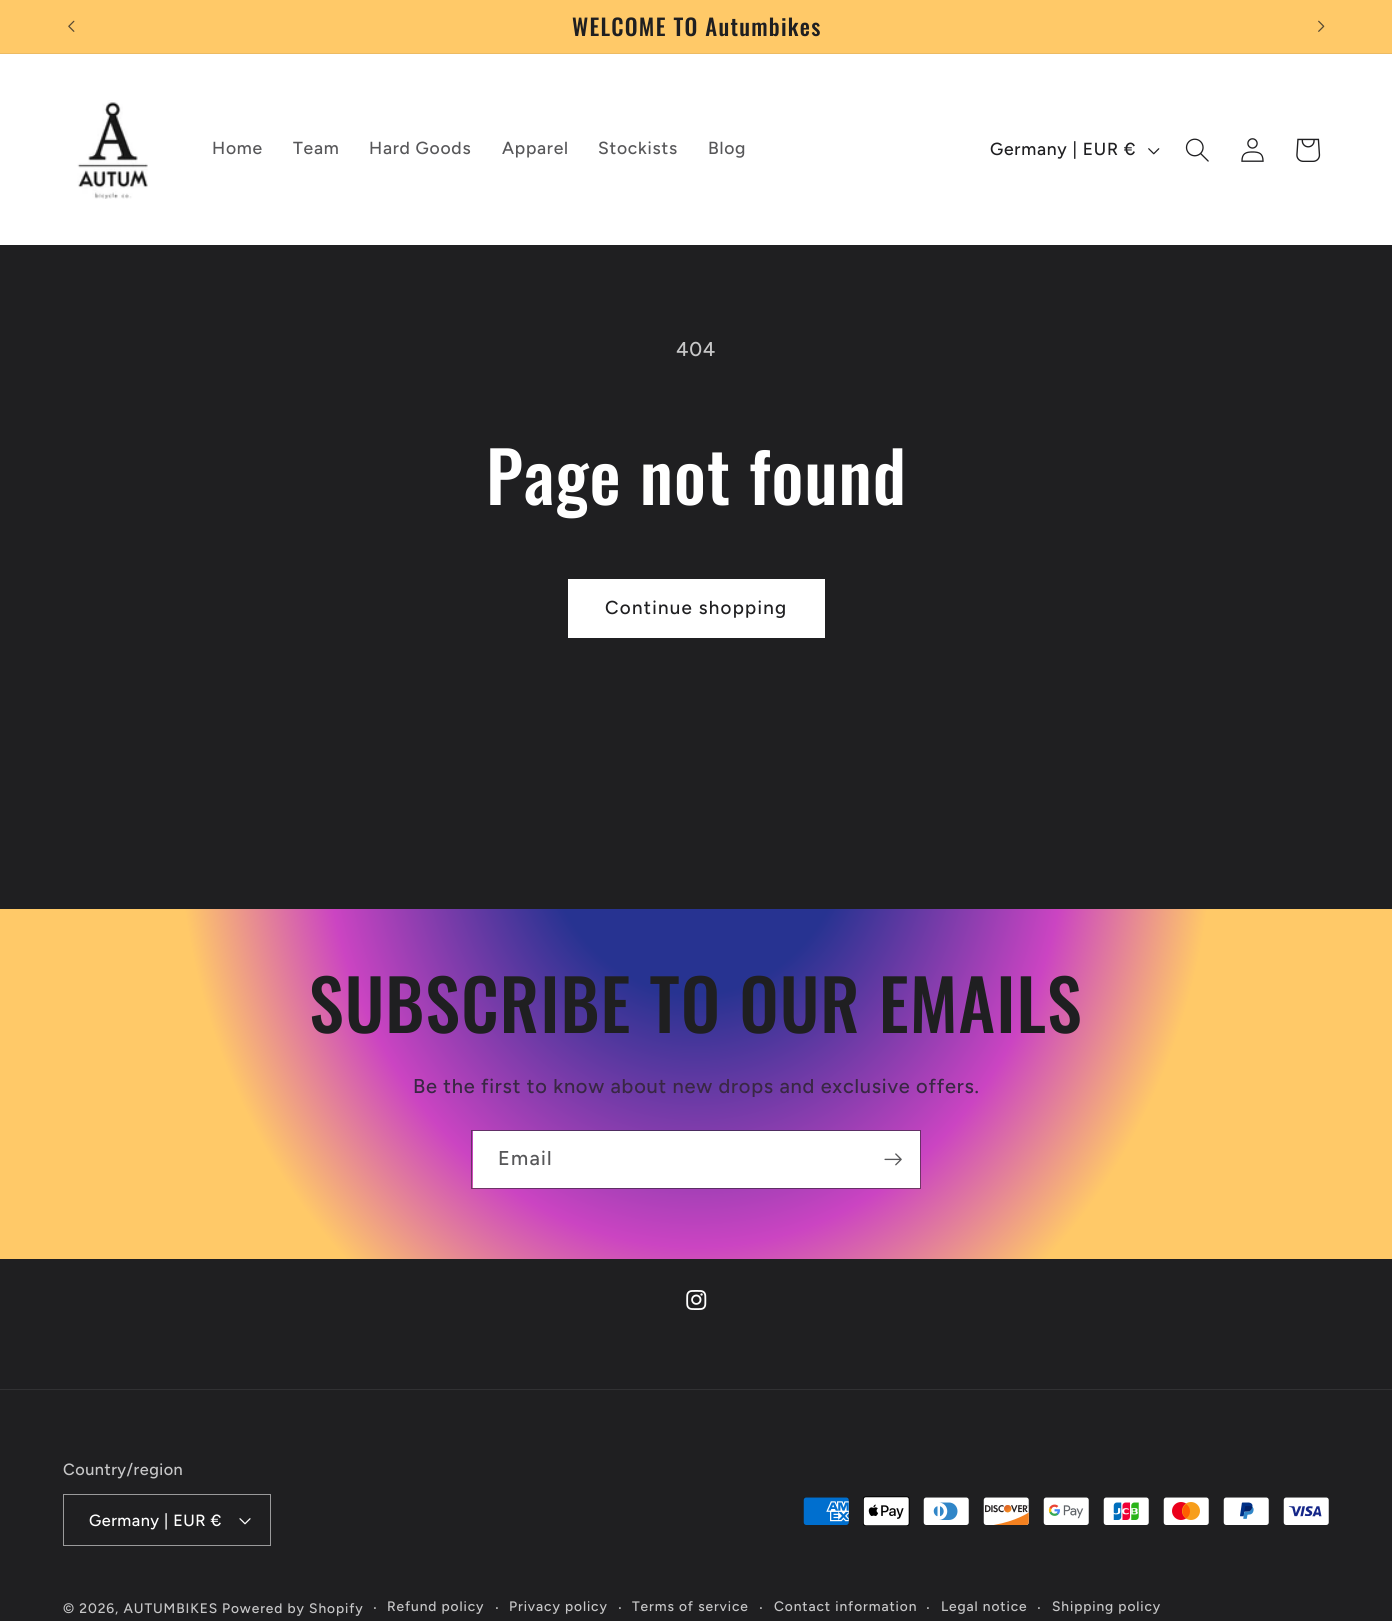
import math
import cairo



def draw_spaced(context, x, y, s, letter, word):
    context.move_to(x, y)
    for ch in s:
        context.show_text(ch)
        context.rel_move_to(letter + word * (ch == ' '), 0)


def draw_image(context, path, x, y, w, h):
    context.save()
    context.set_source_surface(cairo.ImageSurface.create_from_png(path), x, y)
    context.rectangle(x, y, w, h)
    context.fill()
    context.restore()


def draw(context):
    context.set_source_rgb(31 / 255, 31 / 255, 33 / 255)
    context.paint()
    gradient = cairo.RadialGradient(0, 0, 0, 0, 0, 1)
    gradient.set_matrix(cairo.Matrix(1 / 985, 0, 0, 1 / 1146, -1 * 696 / 985, -1 * 811 / 1146))
    gradient.add_color_stop_rgba(0.16, 39 / 255, 51 / 255, 145 / 255, 1)
    gradient.add_color_stop_rgba(0.38, 203 / 255, 68 / 255, 194 / 255, 1)
    gradient.add_color_stop_rgba(0.53, 1, 201 / 255, 104 / 255, 1)
    context.set_source(gradient)
    context.rectangle(0, 0, 1392, 53)
    context.fill()
    context.set_source_rgb(237 / 255, 187 / 255, 98 / 255)
    context.rectangle(0, 53, 1392, 1)
    context.fill()
    draw_image(context, "images/1.png", 68, 20, 7, 12)
    draw_image(context, "images/2.png", 1318, 20, 7, 12)
    context.set_source_rgb(1, 1, 1)
    context.rectangle(0, 54, 1392, 191)
    context.fill()
    draw_image(context, "images/3.png", 77, 100, 71, 99)
    draw_image(context, "images/4.png", 1148, 148, 12, 7)
    draw_image(context, "images/5.png", 1185, 138, 24, 24)
    draw_image(context, "images/6.png", 1241, 138, 23, 24)
    draw_image(context, "images/7.png", 1296, 138, 25, 24)
    context.rectangle(568, 579, 257, 59)
    context.fill()
    gradient = cairo.RadialGradient(0, 0, 0, 0, 0, 1)
    gradient.set_matrix(cairo.Matrix(1 / 985, 0, 0, 1 / 1146, -1 * 696 / 985, -1 * 811 / 1146))
    gradient.add_color_stop_rgba(0.16, 39 / 255, 51 / 255, 145 / 255, 1)
    gradient.add_color_stop_rgba(0.38, 203 / 255, 68 / 255, 194 / 255, 1)
    gradient.add_color_stop_rgba(0.53, 1, 201 / 255, 104 / 255, 1)
    context.set_source(gradient)
    context.rectangle(0, 909, 1392, 350)
    context.fill()
    context.set_source_rgb(1, 1, 1)
    context.rectangle(473, 1131, 447, 57)
    context.fill()
    context.rectangle(471.5, 1130.5, 449, 58)
    context.set_source_rgba(31 / 255, 31 / 255, 33 / 255, 0.55)
    context.set_line_width(1)
    context.stroke()
    draw_image(context, "images/8.png", 884, 1153, 18, 13)
    draw_image(context, "images/9.png", 686, 1290, 21, 20)
    context.set_source_rgb(49 / 255, 49 / 255, 51 / 255)
    context.rectangle(0, 1389, 1392, 1)
    context.fill()
    draw_image(context, "images/10.png", 239, 1518, 12, 7)
    context.rectangle(63.5, 1494.5, 207, 51)
    context.set_source_rgb(154 / 255, 154 / 255, 155 / 255)
    context.stroke()
    draw_image(context, "images/11.png", 803, 1497, 46, 28)
    draw_image(context, "images/12.png", 863, 1496, 47, 30)
    draw_image(context, "images/13.png", 923, 1497, 46, 28)
    draw_image(context, "images/14.png", 983, 1497, 46, 28)
    draw_image(context, "images/15.png", 1043, 1497, 46, 28)
    draw_image(context, "images/16.png", 1103, 1497, 46, 28)
    draw_image(context, "images/17.png", 1163, 1497, 46, 28)
    draw_image(context, "images/18.png", 1223, 1497, 46, 28)
    draw_image(context, "images/19.png", 1283, 1497, 46, 28)
    context.select_font_face("Oswald Medium")
    context.set_font_size(22.75)
    context.set_source_rgb(31 / 255, 31 / 255, 33 / 255)
    draw_spaced(context, 572, 36, "WELCOME TO Autumbikes", 1.25, 0)
    context.select_font_face("Figtree Medium")
    context.set_font_size(17.5)
    context.set_source_rgb(87 / 255, 87 / 255, 89 / 255)
    draw_spaced(context, 212, 154, "Home", 0.75, 0)
    draw_spaced(context, 293, 154, "Team", 0.75, 0)
    draw_spaced(context, 369, 154, "Hard Goods", 0.75, 0)
    draw_spaced(context, 502, 154, "Apparel", 0.75, 0)
    draw_spaced(context, 598, 154, "Stockists", 0.75, 0)
    draw_spaced(context, 708, 154, "Blog", 0.75, 0)
    context.set_source_rgb(31 / 255, 31 / 255, 33 / 255)
    draw_spaced(context, 990, 155, "Germany | EUR €", 0.75, 0)
    context.set_font_size(20)
    context.set_source_rgb(199 / 255, 199 / 255, 200 / 255)
    draw_spaced(context, 676, 356, "404", 0.75, 0)
    context.select_font_face("Oswald Medium")
    context.set_font_size(70)
    context.set_source_rgb(1, 1, 1)
    draw_spaced(context, 486, 505, "Page not found", 1.05, 0)
    context.select_font_face("Figtree Medium")
    context.set_font_size(18.75)
    context.set_source_rgb(31 / 255, 31 / 255, 33 / 255)
    draw_spaced(context, 605, 614, "Continue shopping", 1.25, 0)
    context.select_font_face("Oswald Medium")
    context.set_font_size(70)
    draw_spaced(context, 309, 1033, "SUBSCRIBE TO OUR EMAILS", 1.05, 0)
    context.select_font_face("Figtree Medium")
    context.set_font_size(20)
    context.set_source_rgb(57 / 255, 39 / 255, 68 / 255)
    draw_spaced(context, 413, 1093, "Be the first to know about new drops and exclusive offers.", 0.75, 0)
    context.set_source_rgb(87 / 255, 87 / 255, 89 / 255)
    draw_spaced(context, 498, 1165, "Email", 1.25, 0)
    context.set_font_size(16.25)
    context.set_source_rgb(199 / 255, 199 / 255, 200 / 255)
    draw_spaced(context, 63, 1475, "Country/region", 0.5, 0)
    context.set_source_rgb(1, 1, 1)
    draw_spaced(context, 89, 1526, "Germany | EUR €", 0.5, 0)
    context.set_font_size(13.75)
    context.set_source_rgb(199 / 255, 199 / 255, 200 / 255)
    draw_spaced(context, 63, 1613, "© 2026, AUTUMBIKES", 0.9, 0)
    draw_spaced(context, 222, 1613, "Powered by Shopify", 0.9, 0)
    context.set_font_size(15)
    draw_spaced(context, 373, 1613, "·", 0.9, 0)
    context.set_font_size(13.75)
    draw_spaced(context, 387, 1611, "Refund policy", 0.9, 0)
    context.set_font_size(15)
    draw_spaced(context, 495, 1613, "·", 0.9, 0)
    context.set_font_size(13.75)
    draw_spaced(context, 509, 1611, "Privacy policy", 0.9, 0)
    context.set_font_size(15)
    draw_spaced(context, 618, 1613, "·", 0.9, 0)
    context.set_font_size(13.75)
    draw_spaced(context, 632, 1611, "Terms of service", 0.9, 0)
    context.set_font_size(15)
    draw_spaced(context, 759, 1613, "·", 0.9, 0)
    context.set_font_size(13.75)
    draw_spaced(context, 774, 1611, "Contact information", 0.9, 0)
    context.set_font_size(15)
    draw_spaced(context, 926, 1613, "·", 0.9, 0)
    context.set_font_size(13.75)
    draw_spaced(context, 941, 1611, "Legal notice", 0.9, 0)
    context.set_font_size(15)
    draw_spaced(context, 1037, 1613, "·", 0.9, 0)
    context.set_font_size(13.75)
    draw_spaced(context, 1052, 1611, "Shipping policy", 0.9, 0)


surface = cairo.ImageSurface(cairo.Format.RGB24, 1392, 1621)
context = cairo.Context(surface)
options = cairo.FontOptions()
options.set_hint_metrics(cairo.HintMetrics.OFF)
options.set_hint_style(cairo.HintStyle.NONE)
context.set_font_options(options)
context.set_miter_limit(4)
draw(context)
surface.write_to_png("out.png")
